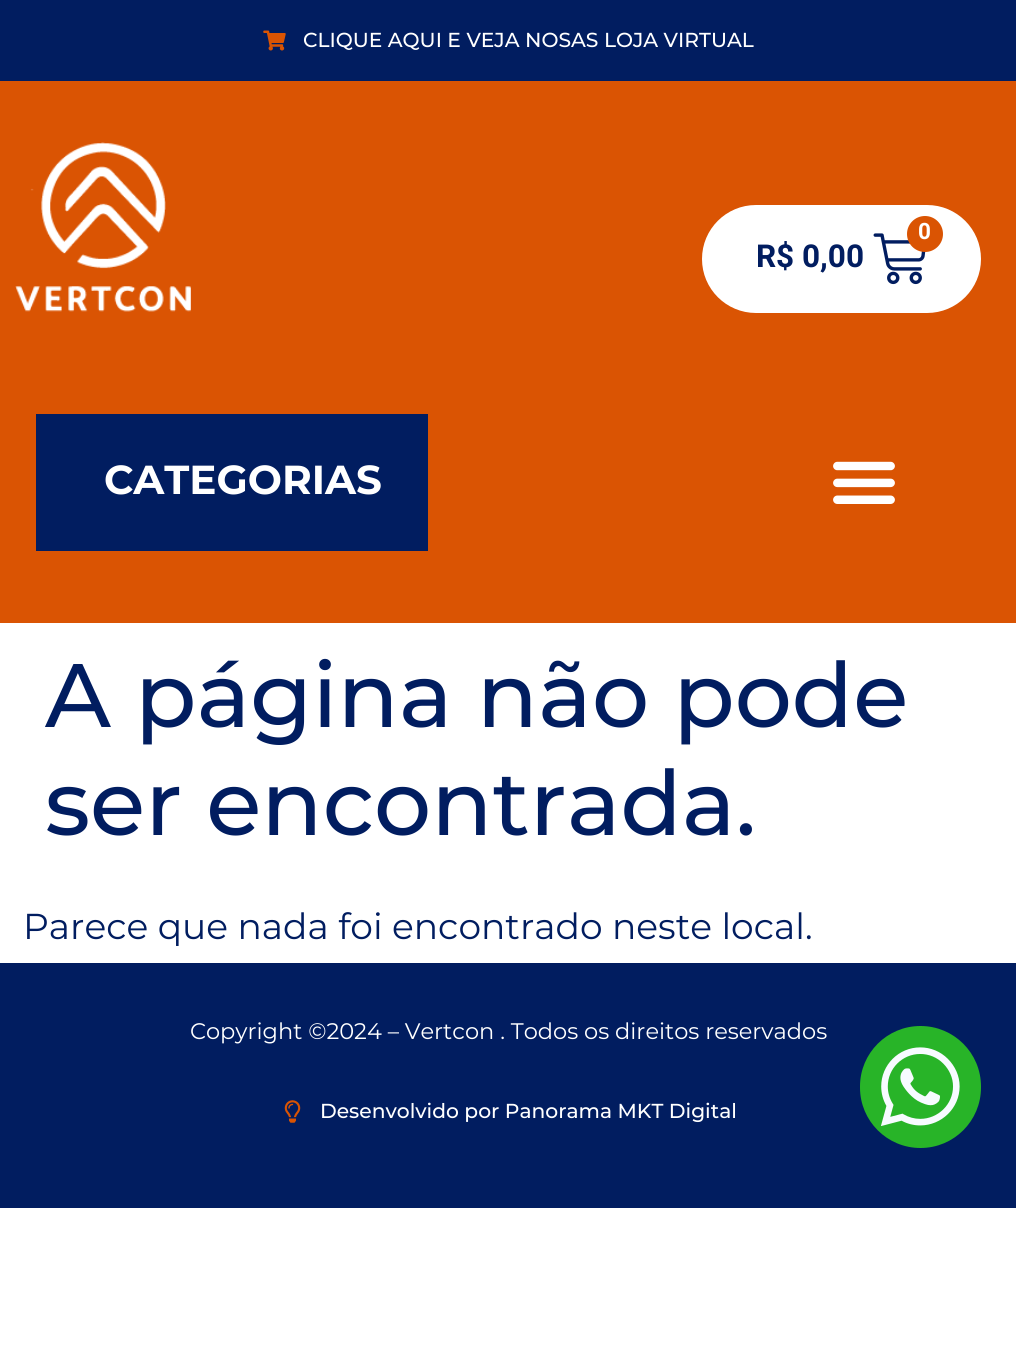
import math
import cairo



def rounded_rect(context, x, y, w, h, r):
    context.new_sub_path()
    for i, (u, v) in enumerate([(x + w - r, y + h - r), (x + r, y + h - r), (x + r, y + r), (x + w - r, y + r)]):
        context.arc(u, v, r, i * math.pi / 2, (i + 1) * math.pi / 2)
    context.close_path()


def draw_image(context, path, x, y, w, h):
    context.save()
    context.set_source_surface(cairo.ImageSurface.create_from_png(path), x, y)
    context.rectangle(x, y, w, h)
    context.fill()
    context.restore()


def draw(context):
    context.set_source_rgb(1, 1, 1)
    context.paint()
    context.set_source_rgb(1 / 255, 29 / 255, 96 / 255)
    context.rectangle(0, 0, 1016, 81)
    context.fill()
    draw_image(context, "images/1.png", 263, 30, 23, 21)
    context.set_source_rgb(218 / 255, 84 / 255, 3 / 255)
    context.rectangle(0, 81, 1016, 542)
    context.fill()
    draw_image(context, "images/2.png", 15, 142, 176, 170)
    context.set_source_rgb(1, 1, 1)
    rounded_rect(context, 702, 205, 279, 108, 54)
    context.fill()
    draw_image(context, "images/3.png", 873, 233, 53, 52)
    context.set_source_rgb(218 / 255, 84 / 255, 3 / 255)
    context.arc(925, 234, 18, 0, 2 * math.pi)
    context.fill()
    context.set_source_rgb(1 / 255, 29 / 255, 96 / 255)
    context.rectangle(36, 414, 392, 137)
    context.fill()
    draw_image(context, "images/4.png", 833, 461, 62, 43)
    context.rectangle(0, 963, 1016, 245)
    context.fill()
    context.set_source_rgb(40 / 255, 180 / 255, 40 / 255)
    rounded_rect(context, 860, 1026, 121, 122, 60.5)
    context.fill()
    draw_image(context, "images/5.png", 881, 1047, 79, 79)
    draw_image(context, "images/6.png", 284, 1100, 17, 23)
    context.select_font_face("Montserrat Medium")
    context.set_font_size(20.25)
    context.set_source_rgb(1, 1, 1)
    context.move_to(303, 47)
    context.show_text("CLIQUE AQUI E VEJA NOSAS LOJA VIRTUAL")
    context.select_font_face("Heebo", cairo.FontSlant.NORMAL, cairo.FontWeight.BOLD)
    context.set_font_size(22.5)
    context.move_to(918, 239)
    context.show_text("0")
    context.set_font_size(31.5)
    context.set_source_rgb(1 / 255, 29 / 255, 96 / 255)
    context.move_to(756, 267)
    context.show_text("R$ 0,00")
    context.select_font_face("Montserrat", cairo.FontSlant.NORMAL, cairo.FontWeight.BOLD)
    context.set_font_size(40.5)
    context.set_source_rgb(1, 1, 1)
    context.move_to(104, 494)
    context.show_text("CATEGORIAS")
    context.select_font_face("Montserrat Medium")
    context.set_font_size(90)
    context.set_source_rgb(1 / 255, 29 / 255, 96 / 255)
    context.move_to(45, 727)
    context.show_text("A página não pode")
    context.move_to(45, 835)
    context.show_text("ser encontrada.")
    context.select_font_face("Montserrat")
    context.set_font_size(36)
    context.move_to(23, 939)
    context.show_text("Parece que nada foi encontrado neste local.")
    context.set_font_size(22.5)
    context.set_source_rgb(1, 1, 1)
    context.move_to(190, 1039)
    context.show_text("Copyright ©2024 – Vertcon . Todos os direitos reservados")
    context.select_font_face("Montserrat Medium")
    context.set_font_size(20.25)
    context.move_to(320, 1118)
    context.show_text("Desenvolvido por Panorama MKT Digital")


surface = cairo.ImageSurface(cairo.Format.RGB24, 1016, 1353)
context = cairo.Context(surface)
options = cairo.FontOptions()
options.set_hint_metrics(cairo.HintMetrics.OFF)
options.set_hint_style(cairo.HintStyle.NONE)
context.set_font_options(options)
context.set_miter_limit(4)
draw(context)
surface.write_to_png("out.png")
